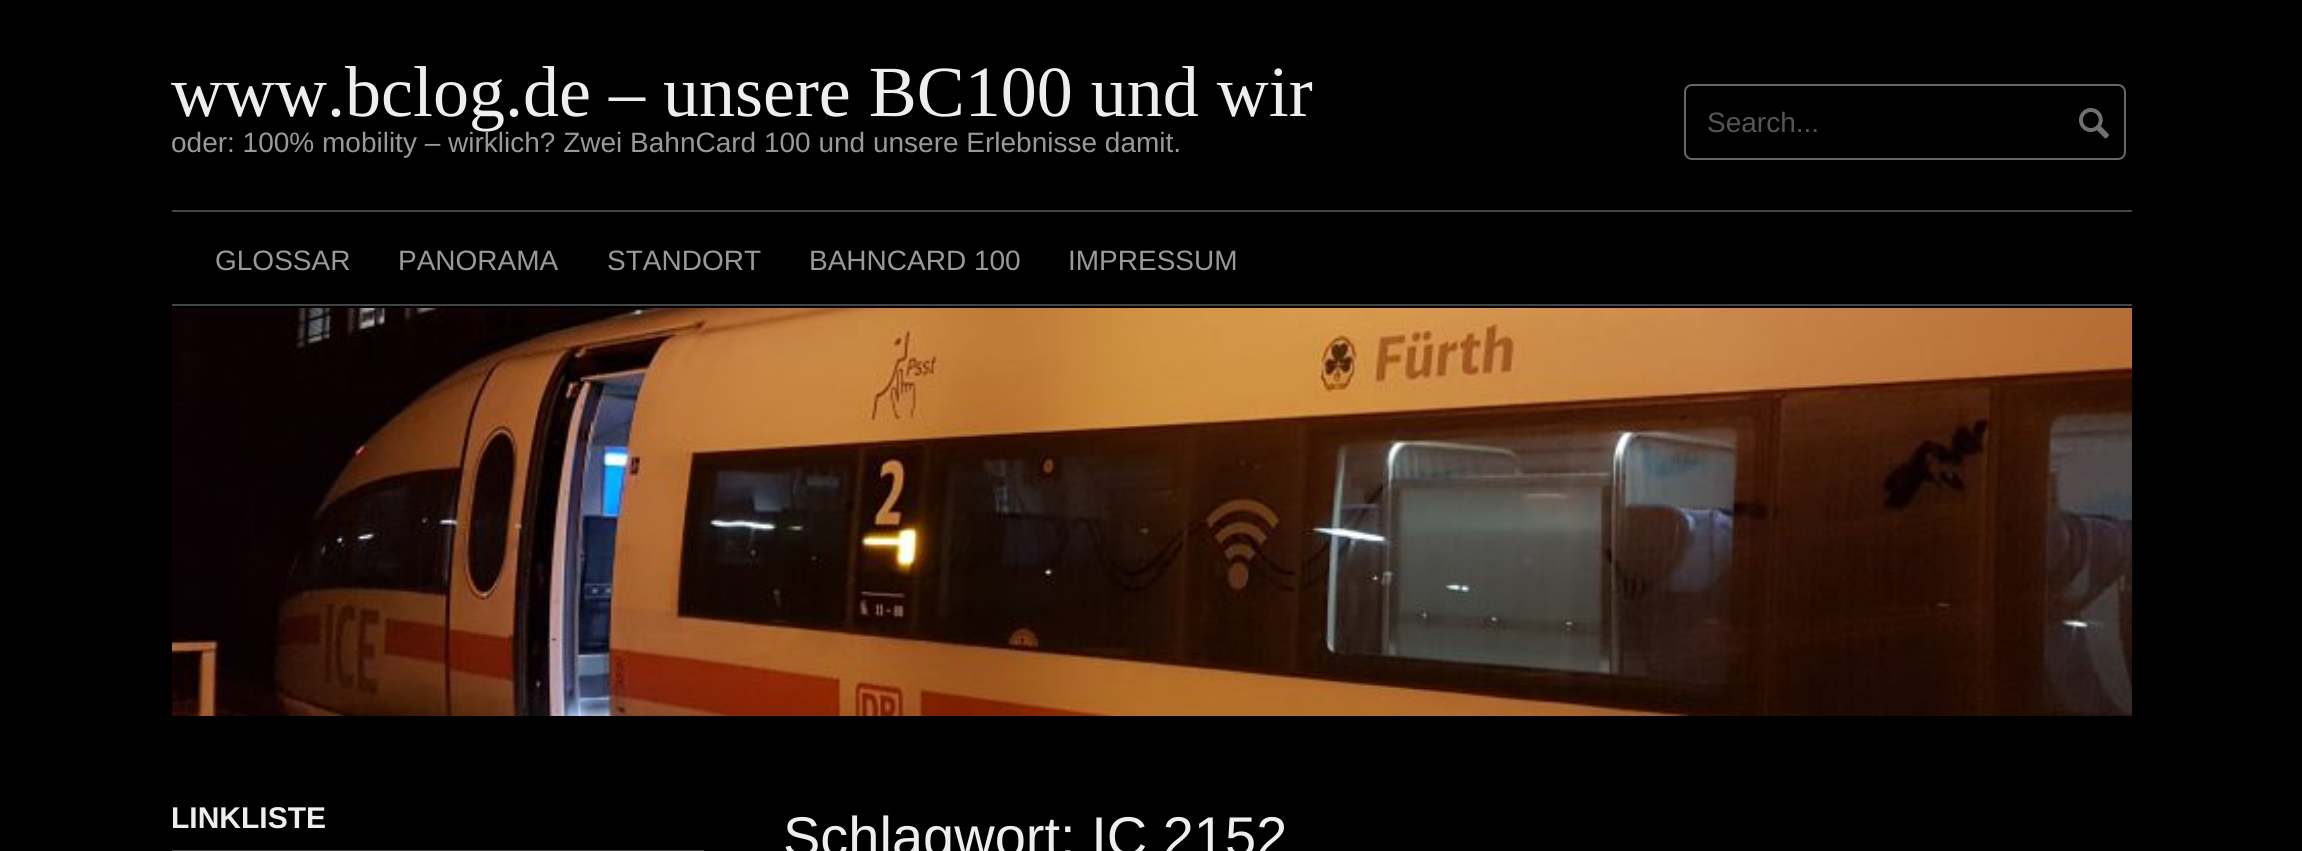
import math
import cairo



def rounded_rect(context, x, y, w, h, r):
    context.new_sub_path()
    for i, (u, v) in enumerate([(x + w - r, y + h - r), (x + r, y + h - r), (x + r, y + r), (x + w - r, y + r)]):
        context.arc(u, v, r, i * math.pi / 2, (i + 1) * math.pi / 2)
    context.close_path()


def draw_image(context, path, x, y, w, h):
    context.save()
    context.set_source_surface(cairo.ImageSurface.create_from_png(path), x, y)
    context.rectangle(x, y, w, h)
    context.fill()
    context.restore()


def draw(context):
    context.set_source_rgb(0, 0, 0)
    context.paint()
    rounded_rect(context, 1685, 85, 440, 74, 7)
    context.set_source_rgb(102 / 255, 102 / 255, 102 / 255)
    context.stroke()
    draw_image(context, "images/1.png", 2079, 108, 30, 31)
    context.set_source_rgb(68 / 255, 68 / 255, 68 / 255)
    context.rectangle(172, 210, 1960, 2)
    context.fill()
    context.rectangle(172, 304, 1960, 2)
    context.fill()
    draw_image(context, "images/2.png", 172, 308, 1960, 408)
    context.rectangle(172, 850, 532, 1)
    context.fill()
    context.select_font_face("Liberation Serif")
    context.set_font_size(72)
    context.set_source_rgb(238 / 255, 238 / 255, 238 / 255)
    context.move_to(171, 116)
    context.show_text("www.bclog.de – unsere BC100 und wir")
    context.select_font_face("Liberation Sans")
    context.set_font_size(28)
    context.set_source_rgb(153 / 255, 153 / 255, 153 / 255)
    context.move_to(171, 152)
    context.show_text("oder: 100% mobility – wirklich? Zwei BahnCard 100 und unsere Erlebnisse damit.")
    context.set_source_rgb(85 / 255, 85 / 255, 85 / 255)
    context.move_to(1707, 132)
    context.show_text("Search...")
    context.set_source_rgb(153 / 255, 153 / 255, 153 / 255)
    context.move_to(215, 270)
    context.show_text("GLOSSAR")
    context.move_to(398, 270)
    context.show_text("PANORAMA")
    context.move_to(607, 270)
    context.show_text("STANDORT")
    context.move_to(809, 270)
    context.show_text("BAHNCARD 100")
    context.move_to(1068, 270)
    context.show_text("IMPRESSUM")
    context.select_font_face("Liberation Sans", cairo.FontSlant.NORMAL, cairo.FontWeight.BOLD)
    context.set_font_size(30)
    context.set_source_rgb(238 / 255, 238 / 255, 238 / 255)
    context.move_to(171, 828)
    context.show_text("LINKLISTE")
    context.select_font_face("Liberation Sans")
    context.set_font_size(56)
    context.move_to(783, 856)
    context.show_text("Schlagwort: IC 2152")


surface = cairo.ImageSurface(cairo.Format.RGB24, 2302, 851)
context = cairo.Context(surface)
options = cairo.FontOptions()
options.set_hint_metrics(cairo.HintMetrics.OFF)
options.set_hint_style(cairo.HintStyle.NONE)
context.set_font_options(options)
context.set_miter_limit(4)
draw(context)
surface.write_to_png("out.png")
